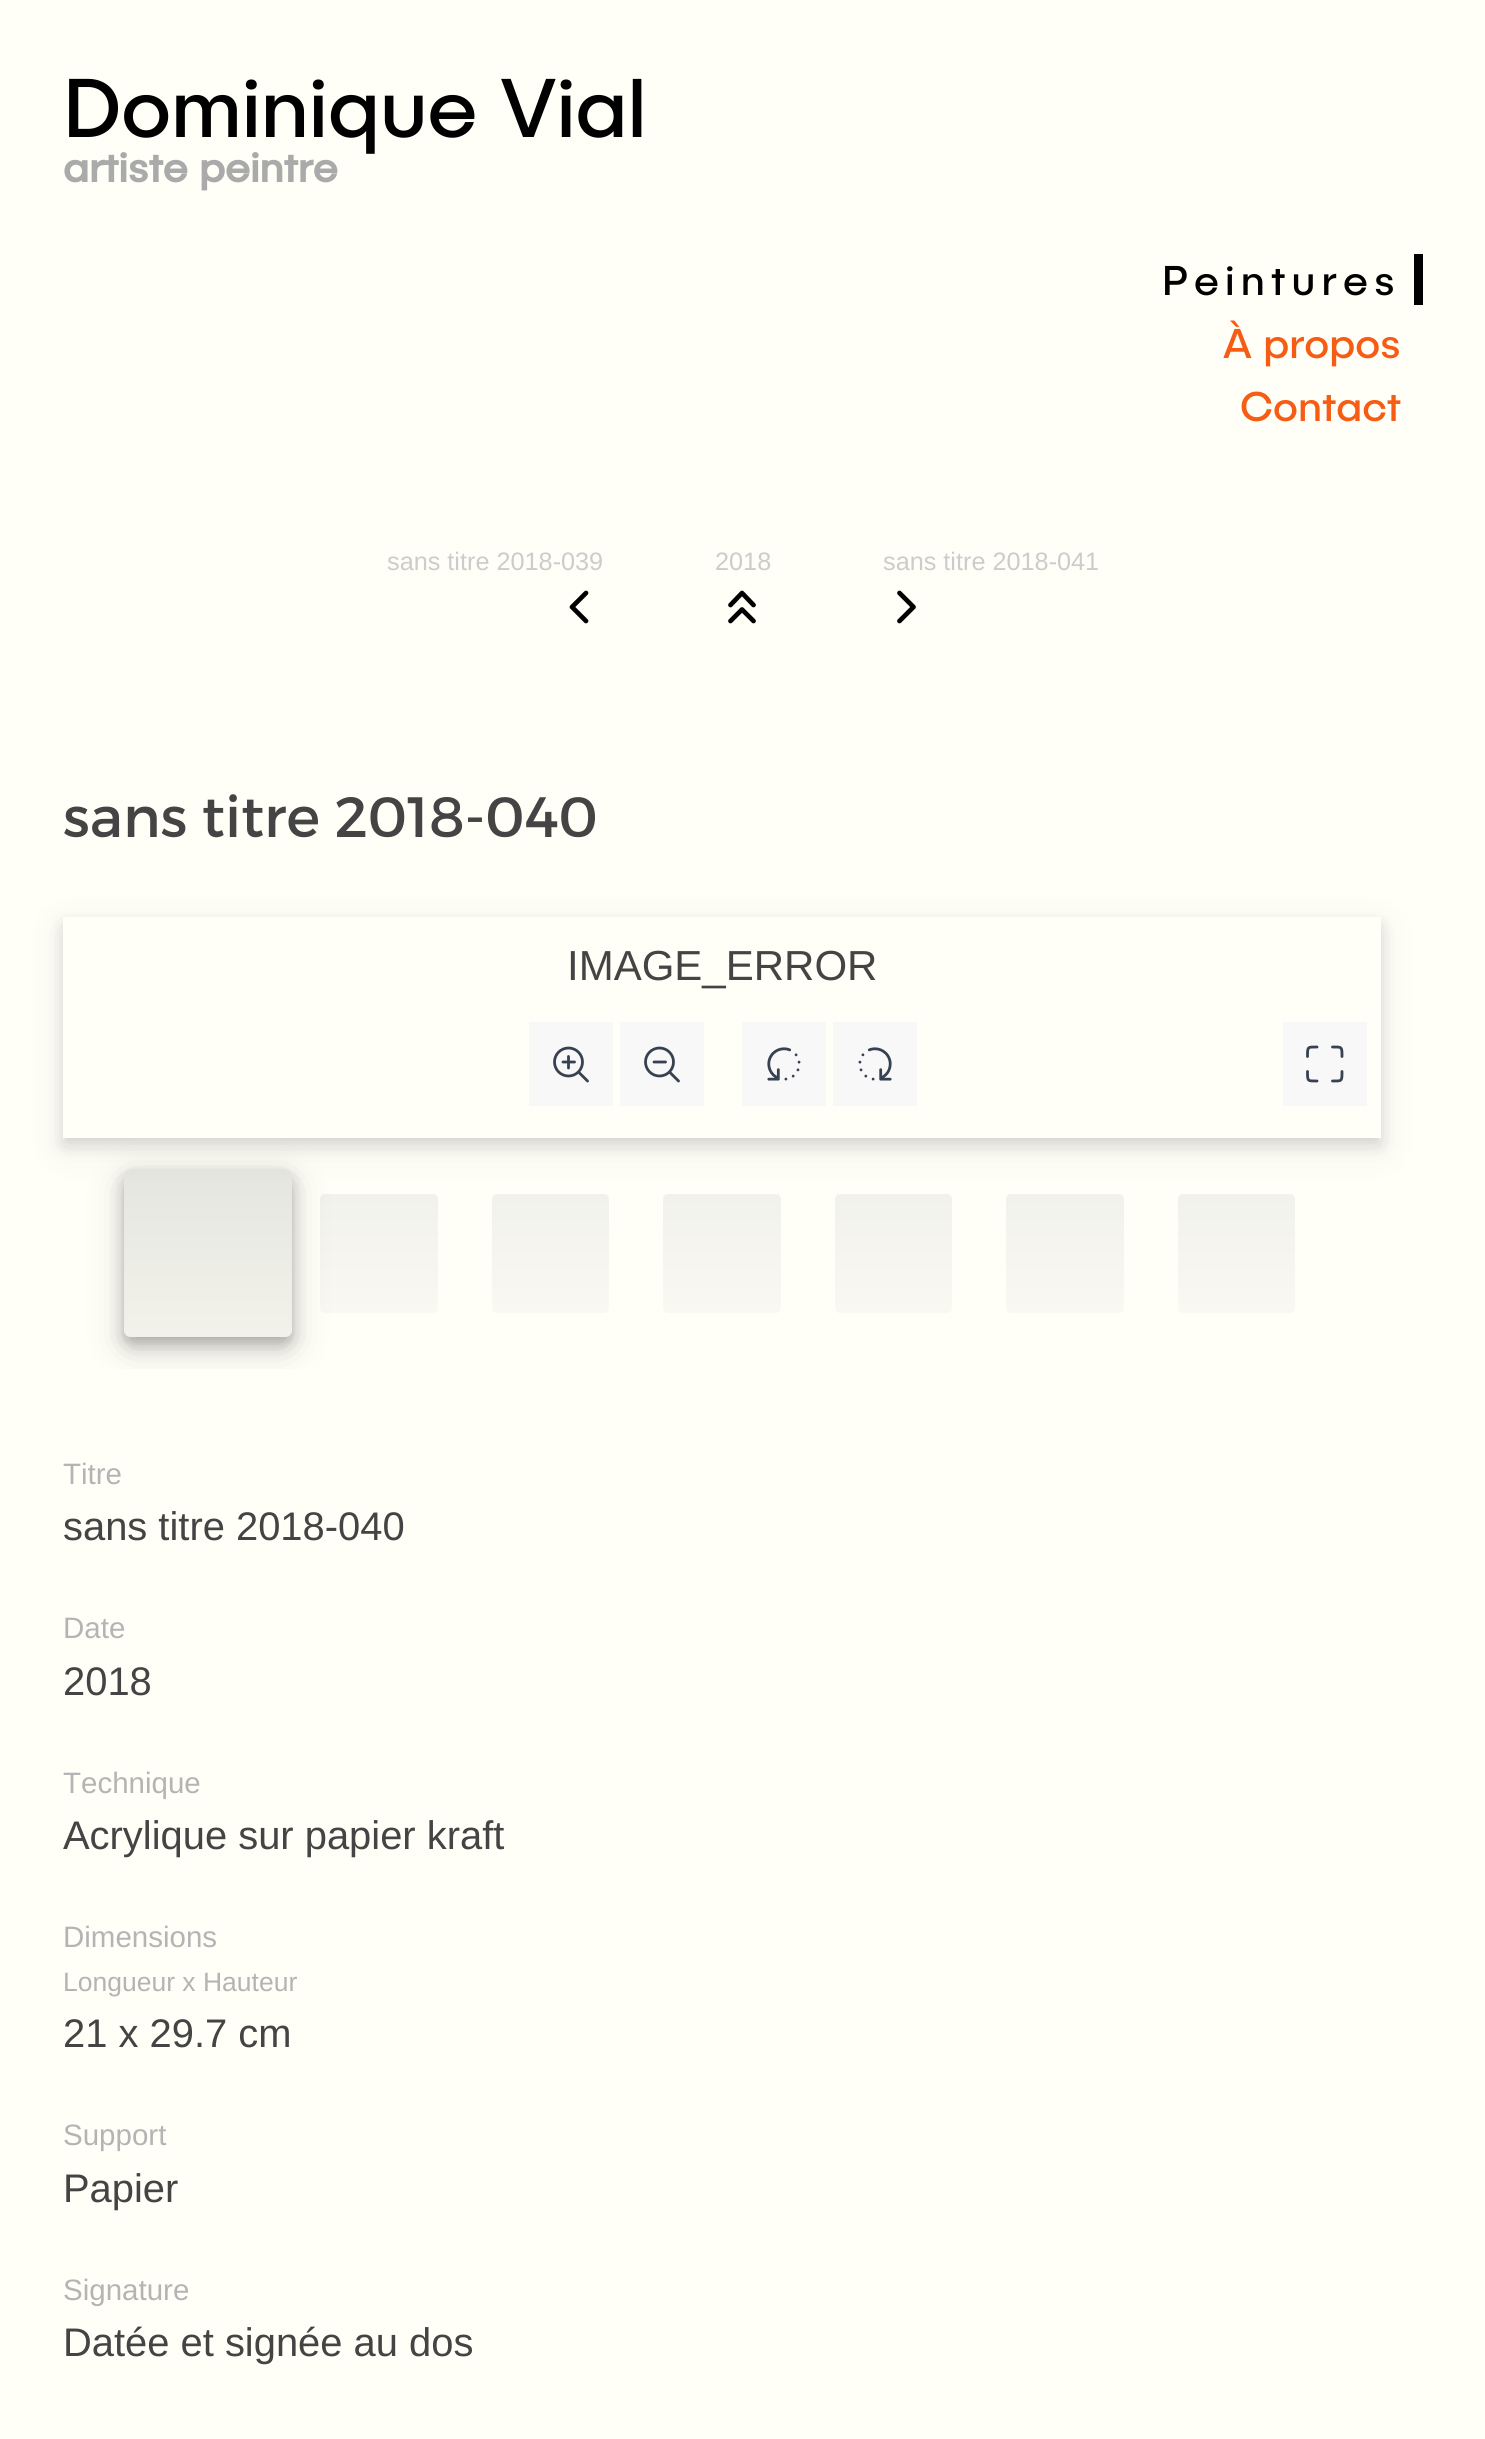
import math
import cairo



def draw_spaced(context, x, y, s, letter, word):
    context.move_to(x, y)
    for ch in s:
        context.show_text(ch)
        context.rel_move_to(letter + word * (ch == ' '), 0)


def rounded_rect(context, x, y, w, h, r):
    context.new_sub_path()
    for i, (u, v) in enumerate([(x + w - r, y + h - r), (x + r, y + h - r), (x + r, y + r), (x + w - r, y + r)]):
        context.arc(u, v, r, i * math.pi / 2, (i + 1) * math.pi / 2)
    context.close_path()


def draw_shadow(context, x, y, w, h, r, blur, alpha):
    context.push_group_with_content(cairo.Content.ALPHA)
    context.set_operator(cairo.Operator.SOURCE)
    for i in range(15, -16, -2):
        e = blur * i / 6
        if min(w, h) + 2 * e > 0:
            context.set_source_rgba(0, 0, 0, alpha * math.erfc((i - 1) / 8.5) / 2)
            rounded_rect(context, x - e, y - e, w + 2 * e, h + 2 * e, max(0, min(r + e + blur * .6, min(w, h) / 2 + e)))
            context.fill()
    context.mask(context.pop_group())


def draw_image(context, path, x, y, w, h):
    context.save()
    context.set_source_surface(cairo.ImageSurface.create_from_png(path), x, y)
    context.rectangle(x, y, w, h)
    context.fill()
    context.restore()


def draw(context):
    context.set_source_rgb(1, 1, 248 / 255)
    context.paint()
    context.set_source_rgb(0, 0, 0)
    context.rectangle(1414, 254, 9, 51)
    context.fill()
    context.new_path()
    context.move_to(586, 593)
    context.line_to(572, 607)
    context.line_to(586, 621)
    context.set_line_width(4.7)
    context.set_line_cap(cairo.LineCap.ROUND)
    context.set_line_join(cairo.LineJoin.ROUND)
    context.stroke()
    context.new_path()
    context.move_to(753.5, 621)
    context.line_to(742, 609.5)
    context.line_to(730.5, 621)
    context.move_to(753.5, 605)
    context.line_to(742, 593)
    context.line_to(730.5, 605)
    context.stroke()
    context.new_path()
    context.move_to(899.5, 593)
    context.line_to(913.5, 607)
    context.line_to(899.5, 621)
    context.stroke()
    context.save()
    context.set_fill_rule(cairo.FillRule.EVEN_ODD)
    context.new_path()
    context.move_to(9, 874)
    context.line_to(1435, 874)
    context.line_to(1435, 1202)
    context.line_to(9, 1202)
    context.close_path()
    context.move_to(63, 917)
    context.line_to(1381, 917)
    context.line_to(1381, 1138)
    context.line_to(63, 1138)
    context.close_path()
    context.clip()
    context.set_source_rgb(0, 0, 0)
    draw_shadow(context, 63, 928, 1318, 220, 0, 17.5, 0.09)
    context.restore()
    context.save()
    context.set_fill_rule(cairo.FillRule.EVEN_ODD)
    context.new_path()
    context.move_to(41, 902)
    context.line_to(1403, 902)
    context.line_to(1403, 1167)
    context.line_to(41, 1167)
    context.close_path()
    context.move_to(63, 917)
    context.line_to(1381, 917)
    context.line_to(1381, 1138)
    context.line_to(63, 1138)
    context.close_path()
    context.clip()
    context.set_source_rgb(0, 0, 0)
    draw_shadow(context, 63, 924, 1318, 221, 0, 7, 0.1)
    context.restore()
    context.set_source_rgb(248 / 255, 248 / 255, 248 / 255)
    context.rectangle(529, 1022, 84, 84)
    context.fill()
    context.new_path()
    context.move_to(568.5, 1056.5)
    context.line_to(568.5, 1068)
    context.set_source_rgb(55 / 255, 65 / 255, 81 / 255)
    context.set_line_width(2.8)
    context.stroke()
    context.arc(568.5, 1062, 14, 0, 2 * math.pi)
    context.set_line_cap(cairo.LineCap.BUTT)
    context.set_line_join(cairo.LineJoin.MITER)
    context.stroke()
    context.new_path()
    context.move_to(587.5, 1081)
    context.line_to(579.5, 1073)
    context.move_to(563, 1062)
    context.line_to(574.5, 1062)
    context.set_line_cap(cairo.LineCap.ROUND)
    context.set_line_join(cairo.LineJoin.ROUND)
    context.stroke()
    context.set_source_rgb(248 / 255, 248 / 255, 248 / 255)
    context.rectangle(620, 1022, 84, 84)
    context.fill()
    context.arc(659.5, 1062, 14, 0, 2 * math.pi)
    context.set_source_rgb(55 / 255, 65 / 255, 81 / 255)
    context.set_line_cap(cairo.LineCap.BUTT)
    context.set_line_join(cairo.LineJoin.MITER)
    context.stroke()
    context.new_path()
    context.move_to(678.5, 1081)
    context.line_to(670.5, 1073)
    context.move_to(654, 1062)
    context.line_to(665.5, 1062)
    context.set_line_cap(cairo.LineCap.ROUND)
    context.set_line_join(cairo.LineJoin.ROUND)
    context.stroke()
    context.set_source_rgb(248 / 255, 248 / 255, 248 / 255)
    context.rectangle(742, 1022, 84, 84)
    context.fill()
    draw_image(context, "images/1.png", 767, 1047, 34, 34)
    context.rectangle(833, 1022, 84, 84)
    context.fill()
    draw_image(context, "images/2.png", 858, 1047, 34, 34)
    context.rectangle(1283, 1022, 84, 84)
    context.fill()
    context.new_path()
    context.move_to(1317, 1047)
    context.curve_to(1307.5, 1047, 1307.5, 1046.5, 1307.5, 1056.5)
    context.move_to(1342, 1056.5)
    context.curve_to(1342, 1046.5, 1342, 1047, 1332.5, 1047)
    context.move_to(1307.5, 1071.5)
    context.curve_to(1307.5, 1081.5, 1307.5, 1081, 1317, 1081)
    context.move_to(1332.5, 1081)
    context.curve_to(1342, 1081, 1342, 1081.5, 1342, 1071.5)
    context.set_source_rgb(55 / 255, 65 / 255, 81 / 255)
    context.stroke()
    gradient = cairo.LinearGradient(207, 1169, 207, 1337)
    gradient.add_color_stop_rgba(0, 0, 0, 0, 0.1)
    gradient.add_color_stop_rgba(1, 0, 0, 0, 0.05)
    context.set_source(gradient)
    rounded_rect(context, 124, 1169, 168, 168, 7)
    context.fill()
    gradient = cairo.LinearGradient(379, 1194, 379, 1312)
    gradient.add_color_stop_rgba(0, 242 / 255, 242 / 255, 236 / 255, 1)
    gradient.add_color_stop_rgba(1, 249 / 255, 249 / 255, 242 / 255, 1)
    context.set_source(gradient)
    rounded_rect(context, 320, 1194, 118, 119, 5)
    context.fill()
    context.save()
    context.rectangle(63, 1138, 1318, 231)
    context.clip()
    context.set_fill_rule(cairo.FillRule.EVEN_ODD)
    context.new_path()
    context.move_to(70, 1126)
    context.line_to(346, 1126)
    context.line_to(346, 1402)
    context.line_to(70, 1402)
    context.close_path()
    context.move_to(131, 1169)
    context.line_to(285, 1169)
    context.curve_to(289, 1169, 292, 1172, 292, 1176)
    context.line_to(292, 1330)
    context.curve_to(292, 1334, 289, 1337, 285, 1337)
    context.line_to(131, 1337)
    context.curve_to(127, 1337, 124, 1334, 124, 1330)
    context.line_to(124, 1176)
    context.curve_to(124, 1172, 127, 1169, 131, 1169)
    context.close_path()
    context.clip()
    context.set_source_rgb(0, 0, 0)
    draw_shadow(context, 124, 1180, 168, 168, 7, 17.5, 0.19)
    context.restore()
    context.save()
    context.set_fill_rule(cairo.FillRule.EVEN_ODD)
    context.new_path()
    context.move_to(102, 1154)
    context.line_to(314, 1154)
    context.line_to(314, 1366)
    context.line_to(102, 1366)
    context.close_path()
    context.move_to(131, 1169)
    context.line_to(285, 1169)
    context.curve_to(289, 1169, 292, 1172, 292, 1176)
    context.line_to(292, 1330)
    context.curve_to(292, 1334, 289, 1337, 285, 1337)
    context.line_to(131, 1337)
    context.curve_to(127, 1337, 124, 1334, 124, 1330)
    context.line_to(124, 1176)
    context.curve_to(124, 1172, 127, 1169, 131, 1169)
    context.close_path()
    context.clip()
    context.set_source_rgb(0, 0, 0)
    draw_shadow(context, 124, 1176, 168, 168, 7, 7, 0.2)
    context.restore()
    gradient = cairo.LinearGradient(550, 1194, 550, 1312)
    gradient.add_color_stop_rgba(0, 242 / 255, 242 / 255, 236 / 255, 1)
    gradient.add_color_stop_rgba(1, 249 / 255, 249 / 255, 242 / 255, 1)
    context.set_source(gradient)
    rounded_rect(context, 492, 1194, 117, 119, 5)
    context.fill()
    gradient = cairo.LinearGradient(722, 1194, 722, 1312)
    gradient.add_color_stop_rgba(0, 242 / 255, 242 / 255, 236 / 255, 1)
    gradient.add_color_stop_rgba(1, 249 / 255, 249 / 255, 242 / 255, 1)
    context.set_source(gradient)
    rounded_rect(context, 663, 1194, 118, 119, 5)
    context.fill()
    gradient = cairo.LinearGradient(893, 1194, 893, 1312)
    gradient.add_color_stop_rgba(0, 242 / 255, 242 / 255, 236 / 255, 1)
    gradient.add_color_stop_rgba(1, 249 / 255, 249 / 255, 242 / 255, 1)
    context.set_source(gradient)
    rounded_rect(context, 835, 1194, 117, 119, 5)
    context.fill()
    gradient = cairo.LinearGradient(1065, 1194, 1065, 1312)
    gradient.add_color_stop_rgba(0, 242 / 255, 242 / 255, 236 / 255, 1)
    gradient.add_color_stop_rgba(1, 249 / 255, 249 / 255, 242 / 255, 1)
    context.set_source(gradient)
    rounded_rect(context, 1006, 1194, 118, 119, 5)
    context.fill()
    gradient = cairo.LinearGradient(1236, 1194, 1236, 1312)
    gradient.add_color_stop_rgba(0, 242 / 255, 242 / 255, 236 / 255, 1)
    gradient.add_color_stop_rgba(1, 249 / 255, 249 / 255, 242 / 255, 1)
    context.set_source(gradient)
    rounded_rect(context, 1178, 1194, 117, 119, 5)
    context.fill()
    context.select_font_face("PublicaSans")
    context.set_font_size(84)
    context.set_source_rgb(0, 0, 0)
    context.move_to(63, 137)
    context.show_text("Dominique Vial")
    context.select_font_face("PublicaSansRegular", cairo.FontSlant.NORMAL, cairo.FontWeight.BOLD)
    context.set_font_size(42)
    context.set_source_rgb(170 / 255, 170 / 255, 170 / 255)
    context.move_to(63, 182)
    context.show_text("artiste peintre")
    context.select_font_face("PublicaSans")
    context.set_source_rgb(0, 0, 0)
    draw_spaced(context, 1162, 295, "Peintures", 6.25, 0)
    context.set_source_rgb(247 / 255, 92 / 255, 20 / 255)
    context.move_to(1223, 358)
    context.show_text("À propos")
    context.move_to(1240, 421)
    context.show_text("Contact")
    context.select_font_face("Liberation Sans")
    context.set_font_size(25.25)
    context.set_source_rgb(204 / 255, 204 / 255, 204 / 255)
    context.move_to(387, 570)
    context.show_text("sans titre 2018-039")
    context.move_to(715, 570)
    context.show_text("2018")
    context.move_to(883, 570)
    context.show_text("sans titre 2018-041")
    context.select_font_face("Montserrat")
    context.set_font_size(56.75)
    context.set_source_rgb(68 / 255, 68 / 255, 68 / 255)
    context.move_to(63, 837)
    context.show_text("sans titre 2018-040")
    context.select_font_face("Liberation Sans")
    context.set_font_size(42)
    context.move_to(567, 980)
    context.show_text("IMAGE_ERROR")
    context.set_font_size(29.5)
    context.set_source_rgb(180 / 255, 180 / 255, 180 / 255)
    context.move_to(63, 1484)
    context.show_text("Titre")
    context.set_font_size(39.9)
    context.set_source_rgb(68 / 255, 68 / 255, 68 / 255)
    context.move_to(63, 1540)
    context.show_text("sans titre 2018-040")
    context.set_font_size(29.5)
    context.set_source_rgb(180 / 255, 180 / 255, 180 / 255)
    context.move_to(63, 1638)
    context.show_text("Date")
    context.set_font_size(39.9)
    context.set_source_rgb(68 / 255, 68 / 255, 68 / 255)
    context.move_to(63, 1695)
    context.show_text("2018")
    context.set_font_size(29.5)
    context.set_source_rgb(180 / 255, 180 / 255, 180 / 255)
    context.move_to(63, 1793)
    context.show_text("Technique")
    context.set_font_size(39.9)
    context.set_source_rgb(68 / 255, 68 / 255, 68 / 255)
    context.move_to(63, 1849)
    context.show_text("Acrylique sur papier kraft")
    context.set_font_size(29.5)
    context.set_source_rgb(180 / 255, 180 / 255, 180 / 255)
    context.move_to(63, 1947)
    context.show_text("Dimensions")
    context.set_font_size(26.5)
    context.move_to(63, 1991)
    context.show_text("Longueur x Hauteur")
    context.set_font_size(39.9)
    context.set_source_rgb(68 / 255, 68 / 255, 68 / 255)
    context.move_to(63, 2047)
    context.show_text("21 x 29.7 cm")
    context.set_font_size(29.5)
    context.set_source_rgb(180 / 255, 180 / 255, 180 / 255)
    context.move_to(63, 2145)
    context.show_text("Support")
    context.set_font_size(39.9)
    context.set_source_rgb(68 / 255, 68 / 255, 68 / 255)
    context.move_to(63, 2202)
    context.show_text("Papier")
    context.set_font_size(29.5)
    context.set_source_rgb(180 / 255, 180 / 255, 180 / 255)
    context.move_to(63, 2300)
    context.show_text("Signature")
    context.set_font_size(39.9)
    context.set_source_rgb(68 / 255, 68 / 255, 68 / 255)
    context.move_to(63, 2356)
    context.show_text("Datée et signée au dos")


surface = cairo.ImageSurface(cairo.Format.RGB24, 1485, 2439)
context = cairo.Context(surface)
options = cairo.FontOptions()
options.set_hint_metrics(cairo.HintMetrics.OFF)
options.set_hint_style(cairo.HintStyle.NONE)
context.set_font_options(options)
context.set_miter_limit(4)
draw(context)
surface.write_to_png("out.png")
